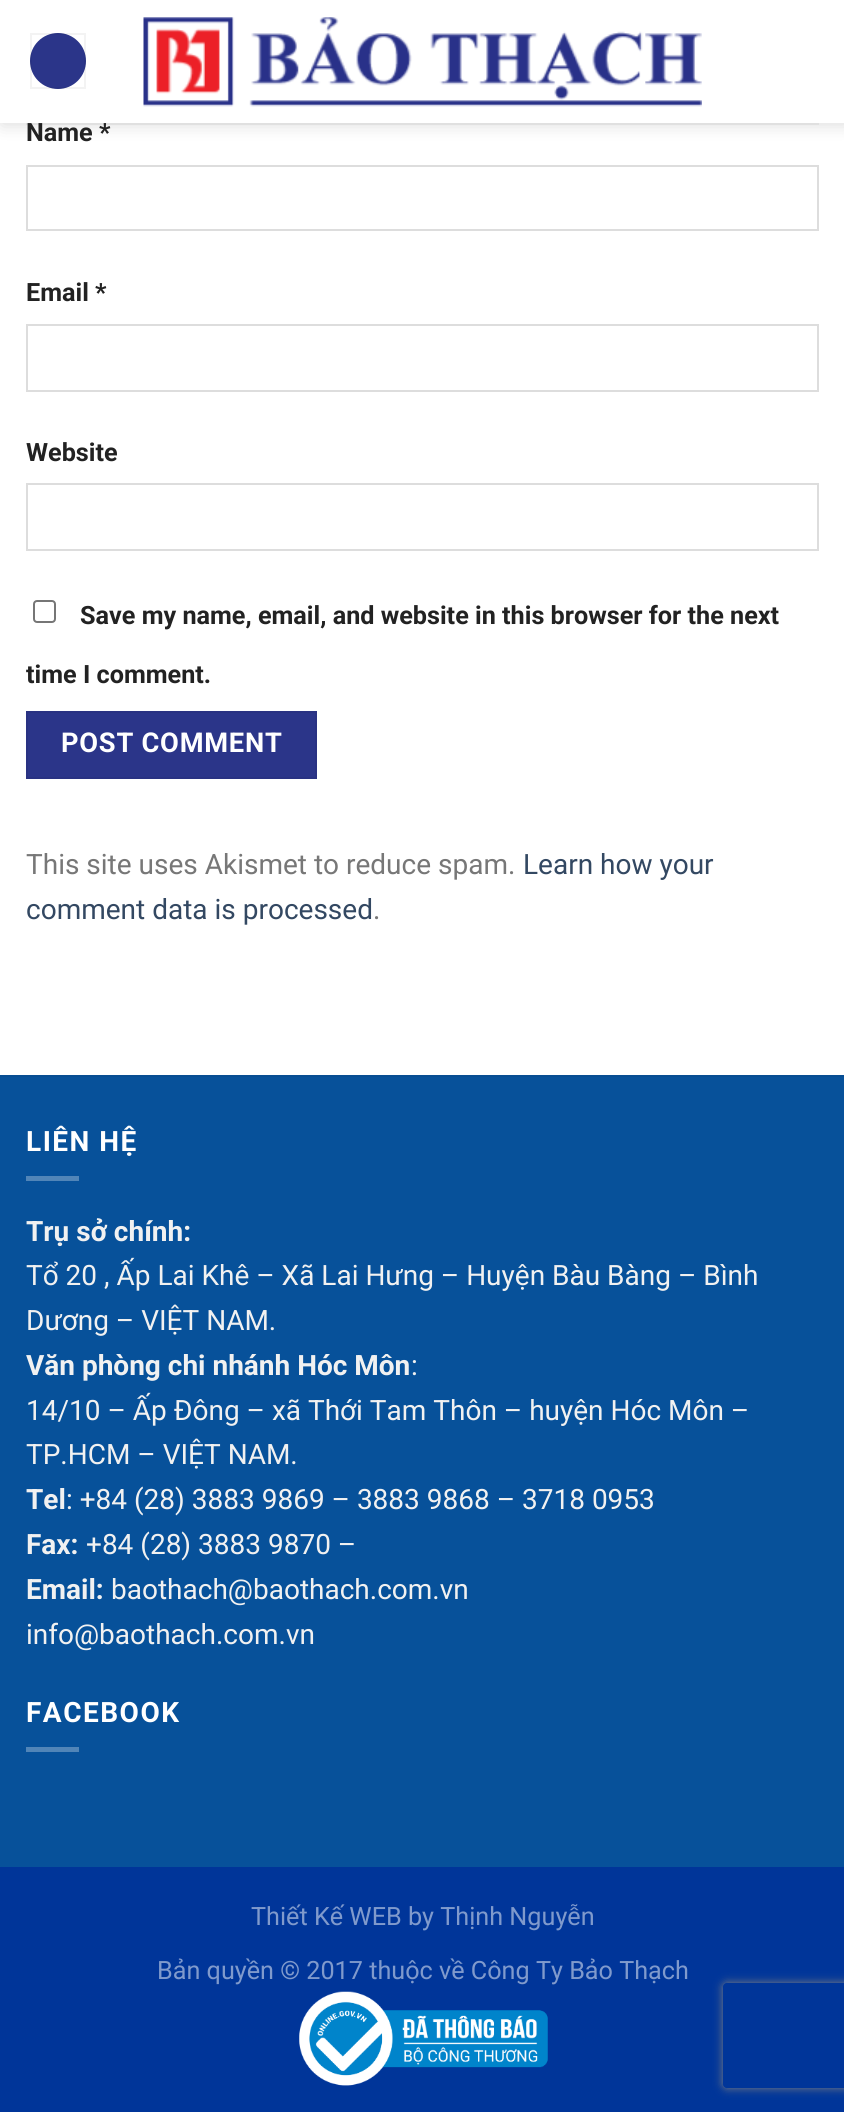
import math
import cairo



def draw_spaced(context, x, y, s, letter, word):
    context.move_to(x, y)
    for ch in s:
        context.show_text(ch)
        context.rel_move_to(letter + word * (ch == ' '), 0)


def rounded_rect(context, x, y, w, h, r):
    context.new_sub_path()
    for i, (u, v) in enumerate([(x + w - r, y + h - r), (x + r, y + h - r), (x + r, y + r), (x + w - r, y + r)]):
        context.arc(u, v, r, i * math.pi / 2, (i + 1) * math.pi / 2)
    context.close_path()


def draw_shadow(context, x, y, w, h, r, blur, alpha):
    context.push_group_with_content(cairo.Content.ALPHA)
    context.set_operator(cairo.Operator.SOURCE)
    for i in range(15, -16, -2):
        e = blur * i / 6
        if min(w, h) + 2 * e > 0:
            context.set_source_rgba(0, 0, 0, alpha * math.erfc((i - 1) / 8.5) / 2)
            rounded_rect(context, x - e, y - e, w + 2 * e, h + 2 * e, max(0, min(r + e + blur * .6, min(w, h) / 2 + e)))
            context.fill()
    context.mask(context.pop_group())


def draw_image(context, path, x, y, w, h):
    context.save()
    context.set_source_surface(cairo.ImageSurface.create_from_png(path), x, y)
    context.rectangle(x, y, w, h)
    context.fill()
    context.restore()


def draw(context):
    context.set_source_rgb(1, 1, 1)
    context.paint()
    context.rectangle(27, -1, 791, 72)
    context.set_source_rgb(221 / 255, 221 / 255, 221 / 255)
    context.stroke()
    context.save()
    context.set_fill_rule(cairo.FillRule.EVEN_ODD)
    context.new_path()
    context.move_to(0, 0)
    context.line_to(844, 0)
    context.line_to(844, 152)
    context.line_to(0, 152)
    context.close_path()
    context.move_to(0, 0)
    context.line_to(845, 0)
    context.line_to(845, 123)
    context.line_to(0, 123)
    context.close_path()
    context.clip()
    context.set_source_rgb(0, 0, 0)
    draw_shadow(context, 2, 2, 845, 122, 0, 9, 0.15)
    context.restore()
    context.set_source_rgba(1, 1, 1, 0.9)
    context.rectangle(0, 0, 844, 123)
    context.fill()
    context.rectangle(26, 0, 793, 72)
    context.fill()
    context.set_source_rgb(43 / 255, 53 / 255, 137 / 255)
    context.arc(58, 61, 28, 0, 2 * math.pi)
    context.fill()
    context.rectangle(31, 34, 54, 54)
    context.set_source_rgba(0, 0, 0, 0.05)
    context.stroke()
    draw_image(context, "images/1.png", 143, 17, 559, 90)
    context.set_source_rgba(119 / 255, 119 / 255, 119 / 255, 0.1)
    context.rectangle(26, 123, 793, 2)
    context.fill()
    context.rectangle(27, 166, 791, 64)
    context.set_source_rgb(221 / 255, 221 / 255, 221 / 255)
    context.stroke()
    context.rectangle(27, 325, 791, 66)
    context.stroke()
    context.rectangle(27, 484, 791, 66)
    context.stroke()
    rounded_rect(context, 34, 601, 21, 21, 3)
    context.set_source_rgb(118 / 255, 118 / 255, 118 / 255)
    context.stroke()
    context.set_source_rgb(43 / 255, 53 / 255, 137 / 255)
    context.rectangle(27, 712, 289, 66)
    context.fill_preserve()
    context.set_source_rgb(41 / 255, 50 / 255, 130 / 255)
    context.stroke()
    context.set_source_rgb(7 / 255, 81 / 255, 154 / 255)
    context.rectangle(0, 1077, 844, 790)
    context.fill()
    context.set_source_rgb(7 / 255, 77 / 255, 146 / 255)
    context.rectangle(0, 1075, 844, 2)
    context.fill()
    context.set_source_rgb(81 / 255, 133 / 255, 184 / 255)
    context.rectangle(26, 1176, 53, 5)
    context.fill()
    context.rectangle(26, 1747, 53, 5)
    context.fill()
    context.set_source_rgb(0, 53 / 255, 153 / 255)
    context.rectangle(0, 1867, 844, 245)
    context.fill()
    draw_image(context, "images/2.png", 299, 1991, 249, 95)
    context.save()
    context.set_fill_rule(cairo.FillRule.EVEN_ODD)
    context.new_path()
    context.move_to(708, 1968)
    context.line_to(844, 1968)
    context.line_to(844, 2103)
    context.line_to(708, 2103)
    context.close_path()
    context.move_to(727, 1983)
    context.line_to(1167, 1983)
    context.curve_to(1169, 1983, 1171, 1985, 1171, 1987)
    context.line_to(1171, 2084)
    context.curve_to(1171, 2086, 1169, 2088, 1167, 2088)
    context.line_to(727, 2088)
    context.curve_to(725, 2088, 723, 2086, 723, 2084)
    context.line_to(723, 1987)
    context.curve_to(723, 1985, 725, 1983, 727, 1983)
    context.close_path()
    context.clip()
    context.set_source_rgb(128 / 255, 128 / 255, 128 / 255)
    draw_shadow(context, 723, 1983, 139, 105, 4, 4.5, 1)
    context.restore()
    context.select_font_face("Roboto", cairo.FontSlant.NORMAL, cairo.FontWeight.BOLD)
    context.set_font_size(25.2)
    context.set_source_rgb(34 / 255, 34 / 255, 34 / 255)
    context.move_to(26, 141)
    context.show_text("Name *")
    context.move_to(26, 301)
    context.show_text("Email *")
    context.move_to(26, 461)
    context.show_text("Website")
    context.move_to(80, 624)
    context.show_text("Save my name, email, and website in this browser for the next")
    context.move_to(26, 683)
    context.show_text("time I comment.")
    context.set_font_size(27.25)
    context.set_source_rgb(1, 1, 1)
    draw_spaced(context, 61, 752, "POST COMMENT", 0.75, 0)
    context.select_font_face("Roboto")
    context.set_font_size(28)
    context.set_source_rgb(119 / 255, 119 / 255, 119 / 255)
    context.move_to(26, 874)
    context.show_text("This site uses Akismet to reduce spam.")
    context.set_source_rgb(51 / 255, 72 / 255, 98 / 255)
    context.move_to(523, 874)
    context.show_text("Learn how your")
    context.move_to(26, 919)
    context.show_text("comment data is processed")
    context.set_source_rgb(119 / 255, 119 / 255, 119 / 255)
    context.move_to(373, 919)
    context.show_text(".")
    context.select_font_face("Roboto", cairo.FontSlant.NORMAL, cairo.FontWeight.BOLD)
    context.set_source_rgb(1, 1, 1)
    draw_spaced(context, 26, 1151, "LIÊN HỆ", 1.5, 0)
    context.set_source_rgb(241 / 255, 241 / 255, 241 / 255)
    context.move_to(26, 1241)
    context.show_text("Trụ sở chính:")
    context.select_font_face("Roboto")
    context.move_to(26, 1285)
    context.show_text("Tổ 20 , Ấp Lai Khê – Xã Lai Hưng – Huyện Bàu Bàng – Bình")
    context.move_to(26, 1330)
    context.show_text("Dương – VIỆT NAM.")
    context.select_font_face("Roboto", cairo.FontSlant.NORMAL, cairo.FontWeight.BOLD)
    context.move_to(26, 1375)
    context.show_text("Văn phòng chi nhánh Hóc Môn")
    context.select_font_face("Roboto")
    context.move_to(411, 1375)
    context.show_text(":")
    context.move_to(26, 1420)
    context.show_text("14/10 – Ấp Đông – xã Thới Tam Thôn – huyện Hóc Môn –")
    context.move_to(26, 1464)
    context.show_text("TP.HCM – VIỆT NAM.")
    context.select_font_face("Roboto", cairo.FontSlant.NORMAL, cairo.FontWeight.BOLD)
    context.move_to(26, 1509)
    context.show_text("Tel")
    context.select_font_face("Roboto")
    context.move_to(66, 1509)
    context.show_text(": +84 (28) 3883 9869 – 3883 9868 – 3718 0953")
    context.select_font_face("Roboto", cairo.FontSlant.NORMAL, cairo.FontWeight.BOLD)
    context.move_to(26, 1554)
    context.show_text("Fax:")
    context.select_font_face("Roboto")
    context.move_to(86, 1554)
    context.show_text("+84 (28) 3883 9870 –")
    context.select_font_face("Roboto", cairo.FontSlant.NORMAL, cairo.FontWeight.BOLD)
    context.move_to(26, 1599)
    context.show_text("Email:")
    context.select_font_face("Roboto")
    context.move_to(111, 1599)
    context.show_text("baothach@baothach.com.vn")
    context.move_to(26, 1644)
    context.show_text("info@baothach.com.vn")
    context.select_font_face("Roboto", cairo.FontSlant.NORMAL, cairo.FontWeight.BOLD)
    context.set_source_rgb(1, 1, 1)
    draw_spaced(context, 26, 1722, "FACEBOOK", 1.5, 0)
    context.select_font_face("Roboto")
    context.set_font_size(25.2)
    context.set_source_rgb(128 / 255, 154 / 255, 204 / 255)
    context.move_to(251, 1925)
    context.show_text("Thiết Kế WEB by Thịnh Nguyễn")
    context.move_to(157, 1979)
    context.show_text("Bản quyền © 2017 thuộc về Công Ty Bảo Thạch")


surface = cairo.ImageSurface(cairo.Format.RGB24, 844, 2112)
context = cairo.Context(surface)
options = cairo.FontOptions()
options.set_hint_metrics(cairo.HintMetrics.OFF)
options.set_hint_style(cairo.HintStyle.NONE)
context.set_font_options(options)
context.set_miter_limit(4)
draw(context)
surface.write_to_png("out.png")
